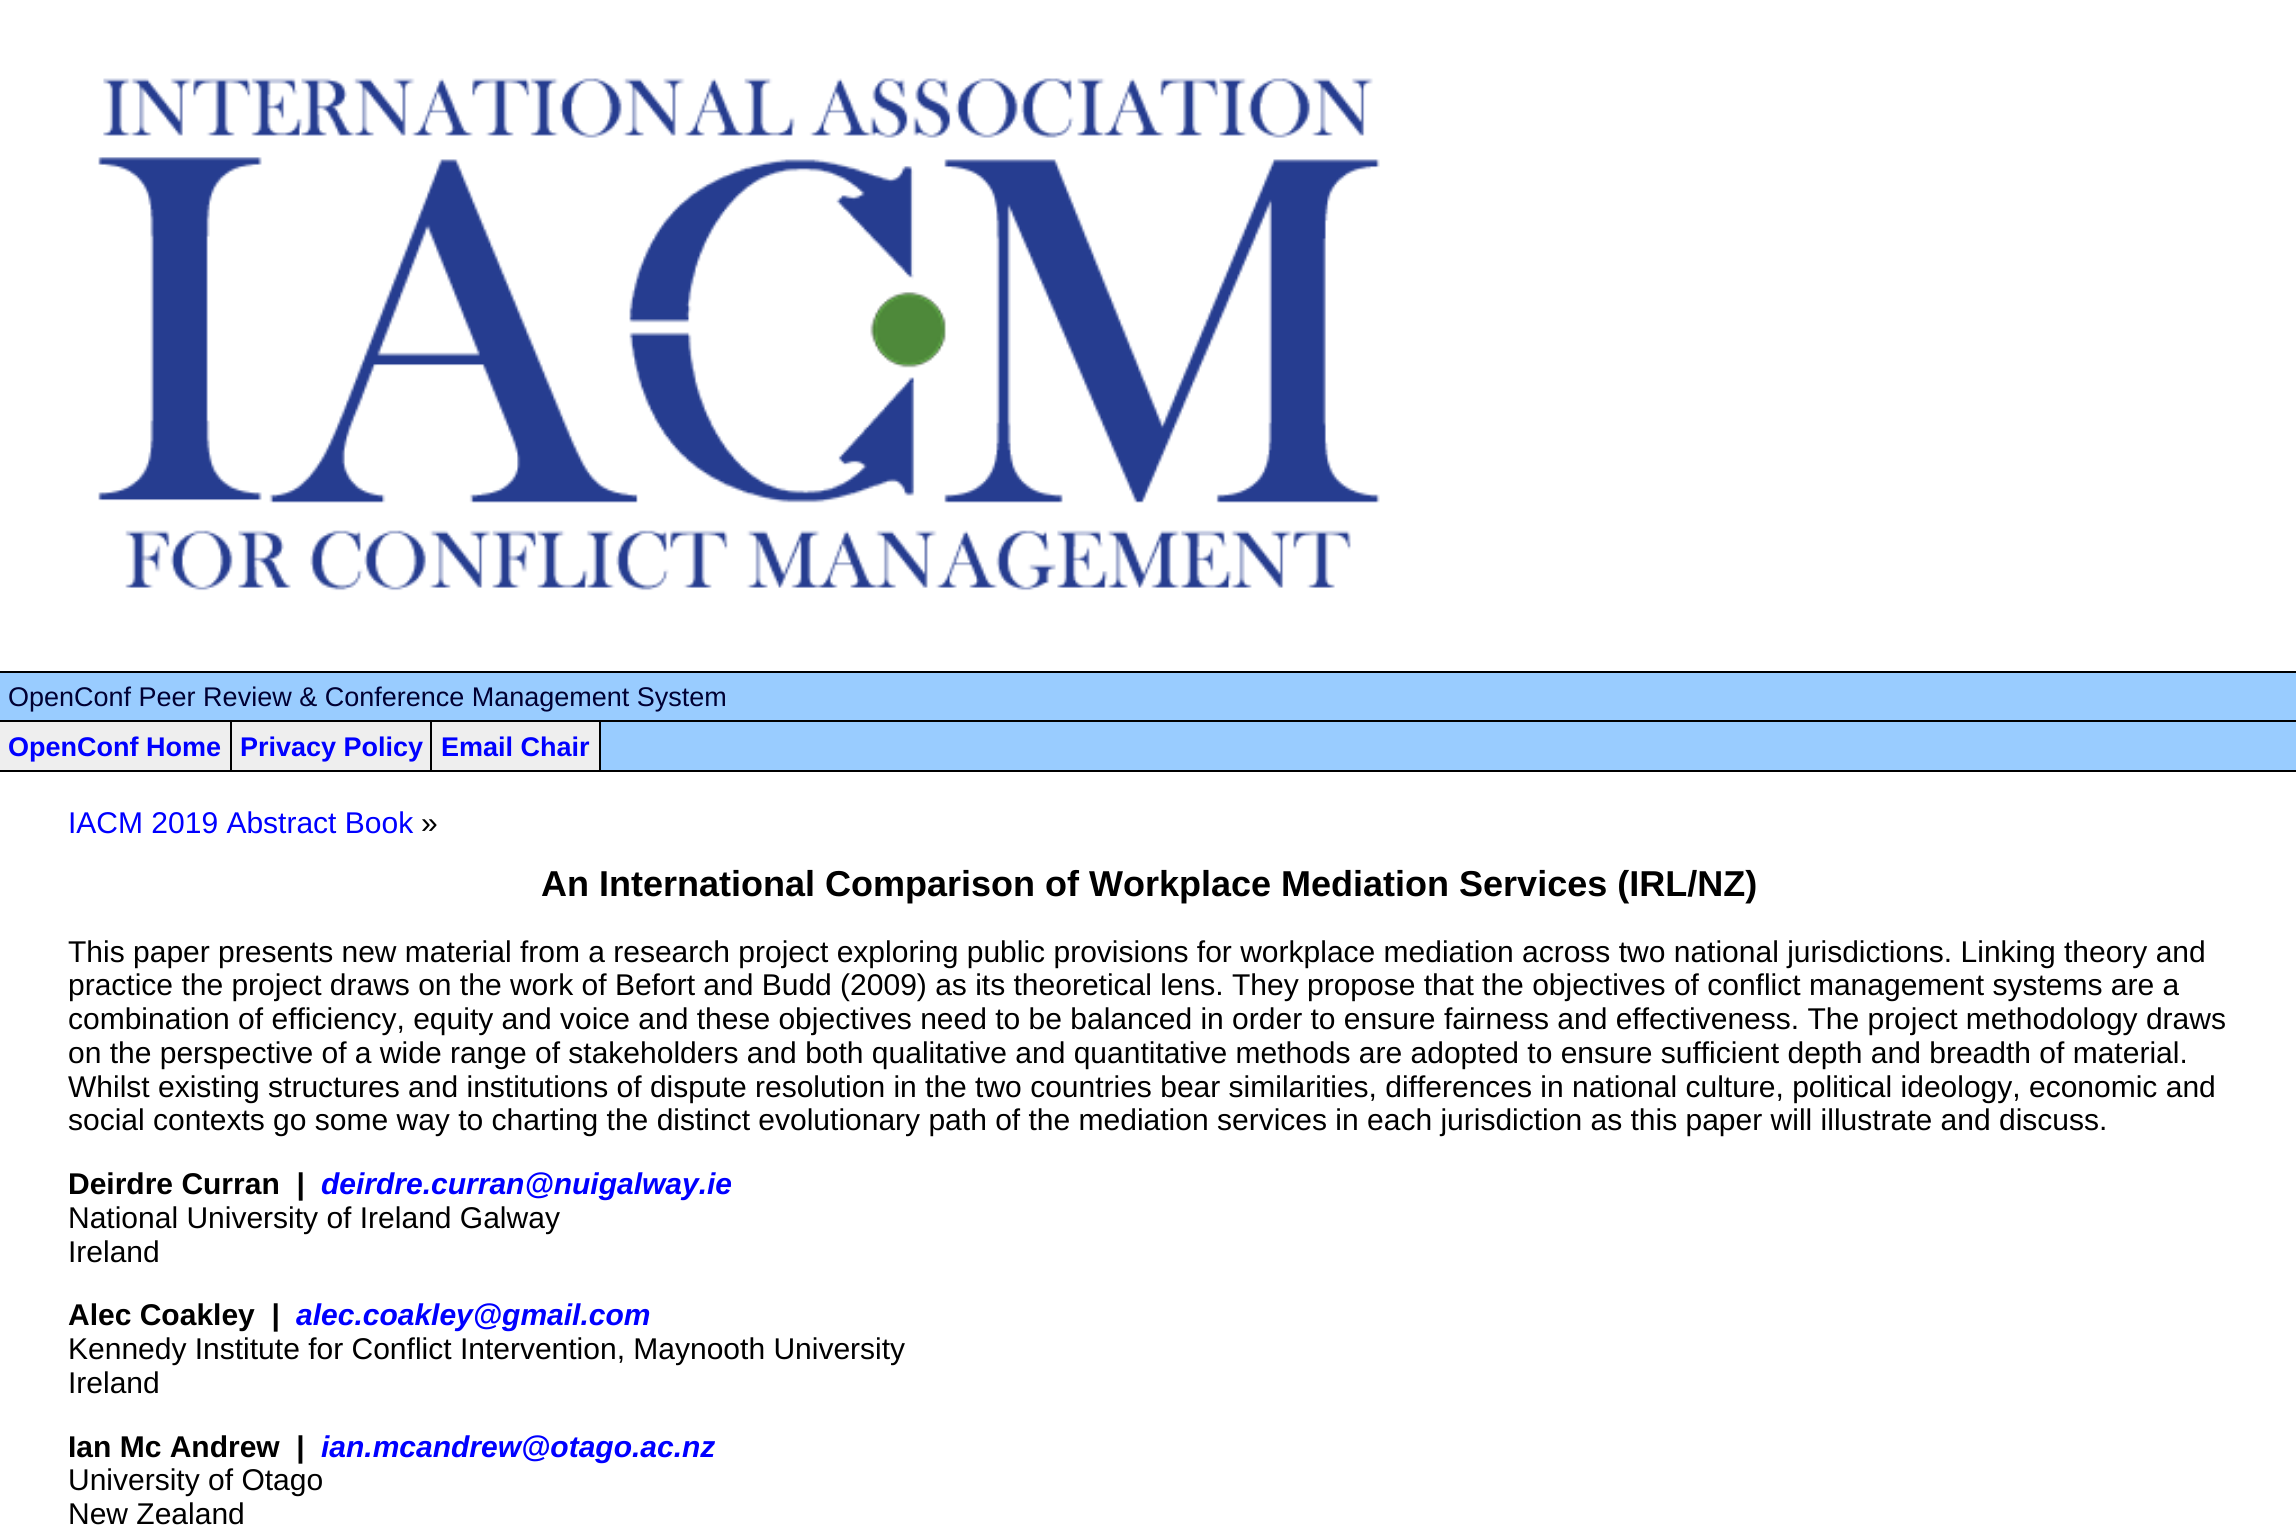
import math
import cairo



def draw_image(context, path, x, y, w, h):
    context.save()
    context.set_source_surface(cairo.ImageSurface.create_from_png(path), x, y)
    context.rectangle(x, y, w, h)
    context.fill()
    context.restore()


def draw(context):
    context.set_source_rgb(1, 1, 1)
    context.paint()
    draw_image(context, "images/1.png", 98, 78, 1282, 513)
    context.set_source_rgb(153 / 255, 204 / 255, 1)
    context.rectangle(0, 673, 2296, 47)
    context.fill()
    context.set_source_rgb(0, 0, 0)
    context.rectangle(0, 671, 2296, 2)
    context.fill()
    context.rectangle(0, 720, 2296, 2)
    context.fill()
    context.set_source_rgb(153 / 255, 204 / 255, 1)
    context.rectangle(601, 722, 1695, 48)
    context.fill()
    context.set_source_rgb(0, 0, 0)
    context.rectangle(0, 770, 2296, 2)
    context.fill()
    context.set_source_rgb(238 / 255, 238 / 255, 238 / 255)
    context.rectangle(0, 722, 230, 48)
    context.fill()
    context.set_source_rgb(0, 0, 0)
    context.rectangle(230, 722, 2, 48)
    context.fill()
    context.set_source_rgb(238 / 255, 238 / 255, 238 / 255)
    context.rectangle(232, 722, 198, 48)
    context.fill()
    context.set_source_rgb(0, 0, 0)
    context.rectangle(430, 722, 2, 48)
    context.fill()
    context.set_source_rgb(238 / 255, 238 / 255, 238 / 255)
    context.rectangle(432, 722, 167, 48)
    context.fill()
    context.set_source_rgb(0, 0, 0)
    context.rectangle(599, 722, 2, 48)
    context.fill()
    context.select_font_face("Liberation Sans")
    context.set_font_size(27)
    context.set_source_rgb(0, 0, 51 / 255)
    context.move_to(8, 706)
    context.show_text("OpenConf Peer Review & Conference Management System")
    context.select_font_face("Liberation Sans", cairo.FontSlant.NORMAL, cairo.FontWeight.BOLD)
    context.set_source_rgb(0, 0, 1)
    context.move_to(8, 756)
    context.show_text("OpenConf Home")
    context.move_to(240, 756)
    context.show_text("Privacy Policy")
    context.move_to(441, 756)
    context.show_text("Email Chair")
    context.select_font_face("Liberation Sans")
    context.set_font_size(30)
    context.move_to(68, 833)
    context.show_text("IACM 2019 Abstract Book")
    context.set_source_rgb(0, 0, 0)
    context.move_to(421, 833)
    context.show_text("»")
    context.select_font_face("Liberation Sans", cairo.FontSlant.NORMAL, cairo.FontWeight.BOLD)
    context.set_font_size(36)
    context.move_to(541, 896)
    context.show_text("An International Comparison of Workplace Mediation Services (IRL/NZ)")
    context.select_font_face("Liberation Sans")
    context.set_font_size(30)
    context.move_to(68, 962)
    context.show_text("This paper presents new material from a research project exploring public provisions for workplace mediation across two national jurisdictions. Linking theory and")
    context.move_to(68, 995)
    context.show_text("practice the project draws on the work of Befort and Budd (2009) as its theoretical lens. They propose that the objectives of conflict management systems are a")
    context.move_to(68, 1029)
    context.show_text("combination of efficiency, equity and voice and these objectives need to be balanced in order to ensure fairness and effectiveness. The project methodology draws")
    context.move_to(68, 1063)
    context.show_text("on the perspective of a wide range of stakeholders and both qualitative and quantitative methods are adopted to ensure sufficient depth and breadth of material.")
    context.move_to(68, 1097)
    context.show_text("Whilst existing structures and institutions of dispute resolution in the two countries bear similarities, differences in national culture, political ideology, economic and")
    context.move_to(68, 1130)
    context.show_text("social contexts go some way to charting the distinct evolutionary path of the mediation services in each jurisdiction as this paper will illustrate and discuss.")
    context.select_font_face("Liberation Sans", cairo.FontSlant.NORMAL, cairo.FontWeight.BOLD)
    context.move_to(68, 1194)
    context.show_text("Deirdre Curran  |")
    context.select_font_face("Liberation Sans", cairo.FontSlant.ITALIC, cairo.FontWeight.BOLD)
    context.set_source_rgb(0, 0, 1)
    context.move_to(321, 1194)
    context.show_text("deirdre.curran@nuigalway.ie")
    context.select_font_face("Liberation Sans")
    context.set_source_rgb(0, 0, 0)
    context.move_to(68, 1228)
    context.show_text("National University of Ireland Galway")
    context.move_to(68, 1262)
    context.show_text("Ireland")
    context.select_font_face("Liberation Sans", cairo.FontSlant.NORMAL, cairo.FontWeight.BOLD)
    context.move_to(68, 1325)
    context.show_text("Alec Coakley  |")
    context.select_font_face("Liberation Sans", cairo.FontSlant.ITALIC, cairo.FontWeight.BOLD)
    context.set_source_rgb(0, 0, 1)
    context.move_to(296, 1325)
    context.show_text("alec.coakley@gmail.com")
    context.select_font_face("Liberation Sans")
    context.set_source_rgb(0, 0, 0)
    context.move_to(68, 1359)
    context.show_text("Kennedy Institute for Conflict Intervention, Maynooth University")
    context.move_to(68, 1393)
    context.show_text("Ireland")
    context.select_font_face("Liberation Sans", cairo.FontSlant.NORMAL, cairo.FontWeight.BOLD)
    context.move_to(68, 1457)
    context.show_text("Ian Mc Andrew  |")
    context.select_font_face("Liberation Sans", cairo.FontSlant.ITALIC, cairo.FontWeight.BOLD)
    context.set_source_rgb(0, 0, 1)
    context.move_to(321, 1457)
    context.show_text("ian.mcandrew@otago.ac.nz")
    context.select_font_face("Liberation Sans")
    context.set_source_rgb(0, 0, 0)
    context.move_to(68, 1490)
    context.show_text("University of Otago")
    context.move_to(68, 1524)
    context.show_text("New Zealand")


surface = cairo.ImageSurface(cairo.Format.RGB24, 2296, 1529)
context = cairo.Context(surface)
options = cairo.FontOptions()
options.set_hint_metrics(cairo.HintMetrics.OFF)
options.set_hint_style(cairo.HintStyle.NONE)
context.set_font_options(options)
context.set_miter_limit(4)
draw(context)
surface.write_to_png("out.png")
